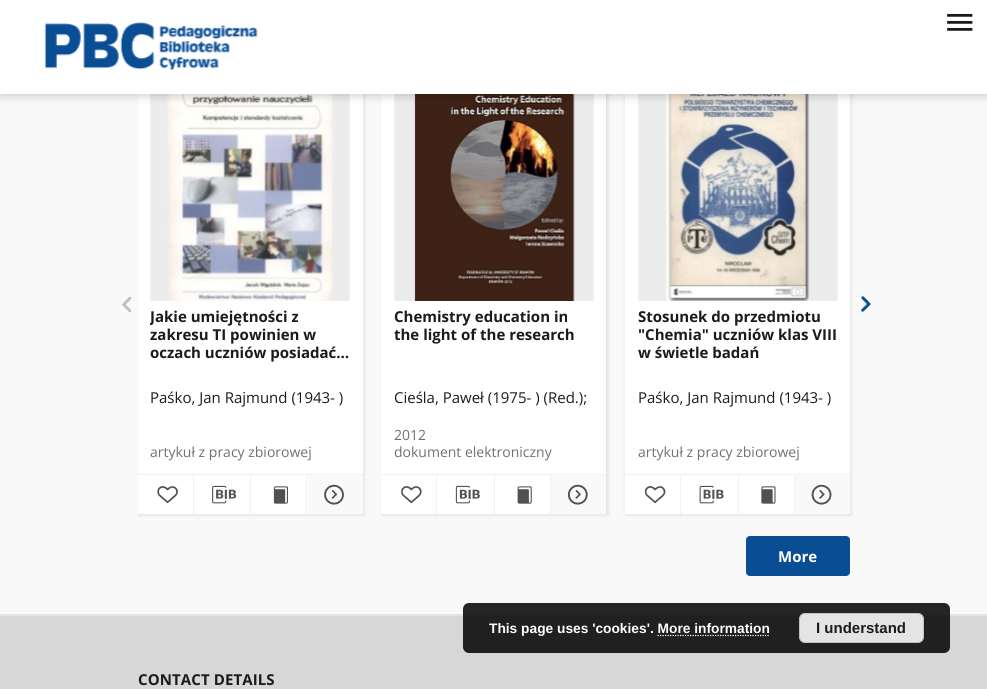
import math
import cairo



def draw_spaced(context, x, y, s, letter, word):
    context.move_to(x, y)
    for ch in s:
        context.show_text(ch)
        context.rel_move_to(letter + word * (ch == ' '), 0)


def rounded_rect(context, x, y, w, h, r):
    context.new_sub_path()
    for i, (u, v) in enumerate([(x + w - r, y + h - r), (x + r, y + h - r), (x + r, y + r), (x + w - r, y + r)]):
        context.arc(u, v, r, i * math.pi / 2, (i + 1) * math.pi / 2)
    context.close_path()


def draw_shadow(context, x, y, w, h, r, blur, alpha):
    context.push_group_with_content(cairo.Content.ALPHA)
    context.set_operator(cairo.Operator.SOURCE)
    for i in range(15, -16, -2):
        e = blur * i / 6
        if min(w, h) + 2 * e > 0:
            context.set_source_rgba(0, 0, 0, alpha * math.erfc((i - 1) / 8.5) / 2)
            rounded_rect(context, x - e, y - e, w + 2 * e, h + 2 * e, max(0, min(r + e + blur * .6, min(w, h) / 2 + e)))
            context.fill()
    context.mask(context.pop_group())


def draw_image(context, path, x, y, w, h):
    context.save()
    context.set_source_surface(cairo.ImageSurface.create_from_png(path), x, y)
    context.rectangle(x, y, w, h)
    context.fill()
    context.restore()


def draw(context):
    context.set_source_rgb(249 / 255, 249 / 255, 249 / 255)
    context.paint()
    context.save()
    context.rectangle(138, 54, 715, 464)
    context.clip()
    context.set_source_rgb(222 / 255, 222 / 255, 222 / 255)
    draw_shadow(context, 139, 59, 225, 456, 0, 2, 1)
    context.restore()
    context.set_source_rgb(1, 1, 1)
    context.rectangle(138, 94, 225, 420)
    context.fill()
    context.set_source_rgb(236 / 255, 236 / 255, 236 / 255)
    context.rectangle(151, 94, 198, 207)
    context.fill()
    context.rectangle(150.5, 70.5, 199, 243)
    context.set_source_rgb(241 / 255, 241 / 255, 241 / 255)
    context.set_line_width(1)
    context.stroke()
    draw_image(context, "images/5.png", 167, 94, 166, 207)
    context.set_source_rgb(222 / 255, 222 / 255, 222 / 255)
    draw_shadow(context, 383, 59, 225, 456, 0, 2, 1)
    context.set_source_rgb(1, 1, 1)
    context.rectangle(381, 94, 225, 420)
    context.fill()
    context.set_source_rgb(236 / 255, 236 / 255, 236 / 255)
    context.rectangle(395, 94, 198, 207)
    context.fill()
    context.rectangle(394.5, 70.5, 199, 243)
    context.set_source_rgb(241 / 255, 241 / 255, 241 / 255)
    context.stroke()
    draw_image(context, "images/10.png", 414, 94, 161, 207)
    context.set_source_rgb(222 / 255, 222 / 255, 222 / 255)
    draw_shadow(context, 626, 59, 225, 456, 0, 2, 1)
    context.set_source_rgb(1, 1, 1)
    context.rectangle(625, 94, 225, 420)
    context.fill()
    context.set_source_rgb(236 / 255, 236 / 255, 236 / 255)
    context.rectangle(639, 94, 198, 207)
    context.fill()
    context.rectangle(638.5, 70.5, 199, 243)
    context.set_source_rgb(241 / 255, 241 / 255, 241 / 255)
    context.stroke()
    draw_image(context, "images/15.png", 666, 94, 144, 207)
    context.set_source_rgb(0, 0, 0)
    draw_shadow(context, 0, 1, 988, 94, 0, 6, 0.08)
    draw_shadow(context, 0, 5, 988, 94, 0, 3, 0.06)
    draw_shadow(context, 1, 4, 985, 91, 0, 2.5, 0.06)
    context.set_source_rgb(1, 1, 1)
    context.rectangle(0, 0, 987, 94)
    context.fill()
    draw_image(context, "images/1.png", 44, 22, 214, 49)
    draw_image(context, "images/2.png", 947, 13, 26, 18)
    context.set_source_rgb(228 / 255, 228 / 255, 228 / 255)
    context.rectangle(0, 614, 987, 2)
    context.fill()
    draw_image(context, "images/3.png", 121, 296, 11, 17)
    draw_image(context, "images/4.png", 861, 296, 10, 16)
    context.set_source_rgb(1, 1, 1)
    context.rectangle(150, 301, 200, 13)
    context.fill()
    context.set_source_rgb(241 / 255, 241 / 255, 241 / 255)
    context.rectangle(138, 474, 225, 1)
    context.fill()
    context.rectangle(193, 475, 1, 39)
    context.fill()
    draw_image(context, "images/6.png", 157, 486, 21, 18)
    context.rectangle(250, 475, 1, 39)
    context.fill()
    draw_image(context, "images/7.png", 212, 485, 25, 19)
    context.rectangle(306, 475, 1, 39)
    context.fill()
    draw_image(context, "images/8.png", 273, 486, 15, 18)
    context.set_source_rgb(249 / 255, 249 / 255, 249 / 255)
    context.rectangle(308, 475, 55, 39)
    context.fill()
    draw_image(context, "images/9.png", 324, 484, 20, 21)
    context.set_source_rgb(1, 1, 1)
    context.rectangle(394, 301, 200, 13)
    context.fill()
    context.set_source_rgb(241 / 255, 241 / 255, 241 / 255)
    context.rectangle(381, 474, 225, 1)
    context.fill()
    context.rectangle(436, 475, 1, 39)
    context.fill()
    draw_image(context, "images/11.png", 401, 486, 21, 18)
    context.rectangle(494, 475, 1, 39)
    context.fill()
    draw_image(context, "images/12.png", 455, 485, 25, 19)
    context.rectangle(550, 475, 1, 39)
    context.fill()
    draw_image(context, "images/13.png", 517, 486, 15, 18)
    context.set_source_rgb(249 / 255, 249 / 255, 249 / 255)
    context.rectangle(551, 475, 55, 39)
    context.fill()
    draw_image(context, "images/14.png", 567, 484, 21, 21)
    context.set_source_rgb(1, 1, 1)
    context.rectangle(638, 301, 200, 13)
    context.fill()
    context.set_source_rgb(241 / 255, 241 / 255, 241 / 255)
    context.rectangle(625, 474, 225, 1)
    context.fill()
    context.rectangle(680, 475, 1, 39)
    context.fill()
    draw_image(context, "images/16.png", 644, 486, 22, 18)
    context.rectangle(738, 475, 1, 39)
    context.fill()
    draw_image(context, "images/17.png", 699, 485, 25, 19)
    context.rectangle(794, 475, 1, 39)
    context.fill()
    draw_image(context, "images/18.png", 761, 486, 15, 18)
    context.set_source_rgb(249 / 255, 249 / 255, 249 / 255)
    context.rectangle(795, 475, 55, 39)
    context.fill()
    draw_image(context, "images/19.png", 811, 484, 21, 21)
    context.set_source_rgb(9 / 255, 77 / 255, 148 / 255)
    rounded_rect(context, 746.5, 536.5, 103, 39, 3.5)
    context.fill_preserve()
    context.stroke()
    context.set_source_rgb(215 / 255, 215 / 255, 215 / 255)
    context.rectangle(0, 616, 987, 73)
    context.fill()
    context.set_source_rgba(0, 0, 0, 0.85)
    rounded_rect(context, 463, 603, 487, 50, 6)
    context.fill()
    context.set_source_rgb(228 / 255, 228 / 255, 228 / 255)
    rounded_rect(context, 799.5, 613.5, 124, 29, 5.5)
    context.fill_preserve()
    context.set_source_rgb(193 / 255, 193 / 255, 193 / 255)
    context.stroke()
    context.new_path()
    context.move_to(657.5, 635.5)
    context.line_to(770, 635.5)
    context.set_source_rgb(1, 1, 1)
    context.set_line_width(1.2)
    context.set_dash([1.25, 1.25])
    context.stroke()
    context.save()
    context.rectangle(150, 301, 200, 62)
    context.clip()
    context.select_font_face("Open Sans", cairo.FontSlant.NORMAL, cairo.FontWeight.BOLD)
    context.set_font_size(15)
    context.set_source_rgb(26 / 255, 27 / 255, 28 / 255)
    context.move_to(150, 322)
    context.show_text("Jakie umiejętności z")
    context.restore()
    context.select_font_face("Open Sans", cairo.FontSlant.NORMAL, cairo.FontWeight.BOLD)
    context.set_font_size(15)
    context.set_source_rgb(26 / 255, 27 / 255, 28 / 255)
    context.move_to(150, 340)
    context.show_text("zakresu TI powinien w")
    context.move_to(150, 358)
    context.show_text("oczach uczniów posiadać…")
    context.select_font_face("Open Sans")
    context.move_to(150, 403)
    context.show_text("Paśko, Jan Rajmund (1943- )")
    context.set_font_size(14)
    context.set_source_rgb(112 / 255, 112 / 255, 112 / 255)
    context.move_to(150, 457)
    context.show_text("artykuł z pracy zbiorowej")
    context.select_font_face("Open Sans", cairo.FontSlant.NORMAL, cairo.FontWeight.BOLD)
    context.set_font_size(15)
    context.set_source_rgb(26 / 255, 27 / 255, 28 / 255)
    context.move_to(394, 322)
    context.show_text("Chemistry education in")
    context.move_to(394, 340)
    context.show_text("the light of the research")
    context.select_font_face("Open Sans")
    context.move_to(394, 403)
    context.show_text("Cieśla, Paweł (1975- ) (Red.);")
    context.set_font_size(14)
    context.set_source_rgb(112 / 255, 112 / 255, 112 / 255)
    context.move_to(394, 440)
    context.show_text("2012")
    context.move_to(394, 457)
    context.show_text("dokument elektroniczny")
    context.select_font_face("Open Sans", cairo.FontSlant.NORMAL, cairo.FontWeight.BOLD)
    context.set_font_size(15)
    context.set_source_rgb(26 / 255, 27 / 255, 28 / 255)
    context.move_to(638, 322)
    context.show_text("Stosunek do przedmiotu")
    context.move_to(638, 340)
    context.show_text("\"Chemia\" uczniów klas VIII")
    context.move_to(638, 358)
    context.show_text("w świetle badań")
    context.select_font_face("Open Sans")
    context.move_to(638, 403)
    context.show_text("Paśko, Jan Rajmund (1943- )")
    context.set_font_size(14)
    context.set_source_rgb(112 / 255, 112 / 255, 112 / 255)
    context.move_to(638, 457)
    context.show_text("artykuł z pracy zbiorowej")
    context.select_font_face("Open Sans", cairo.FontSlant.NORMAL, cairo.FontWeight.BOLD)
    context.set_font_size(15)
    context.set_source_rgb(1, 1, 1)
    context.move_to(778, 562)
    context.show_text("More")
    context.select_font_face("Liberation Sans", cairo.FontSlant.NORMAL, cairo.FontWeight.BOLD)
    context.set_font_size(13.75)
    context.move_to(489, 633)
    context.show_text("This page uses 'cookies'. More information")
    context.set_font_size(15)
    context.set_source_rgb(26 / 255, 27 / 255, 28 / 255)
    context.move_to(816, 633)
    context.show_text("I understand")
    context.select_font_face("Open Sans", cairo.FontSlant.NORMAL, cairo.FontWeight.BOLD)
    draw_spaced(context, 138, 685, "CONTACT DETAILS", 0.1, 0)


surface = cairo.ImageSurface(cairo.Format.RGB24, 987, 689)
context = cairo.Context(surface)
options = cairo.FontOptions()
options.set_hint_metrics(cairo.HintMetrics.OFF)
options.set_hint_style(cairo.HintStyle.NONE)
context.set_font_options(options)
context.set_miter_limit(4)
draw(context)
surface.write_to_png("out.png")
